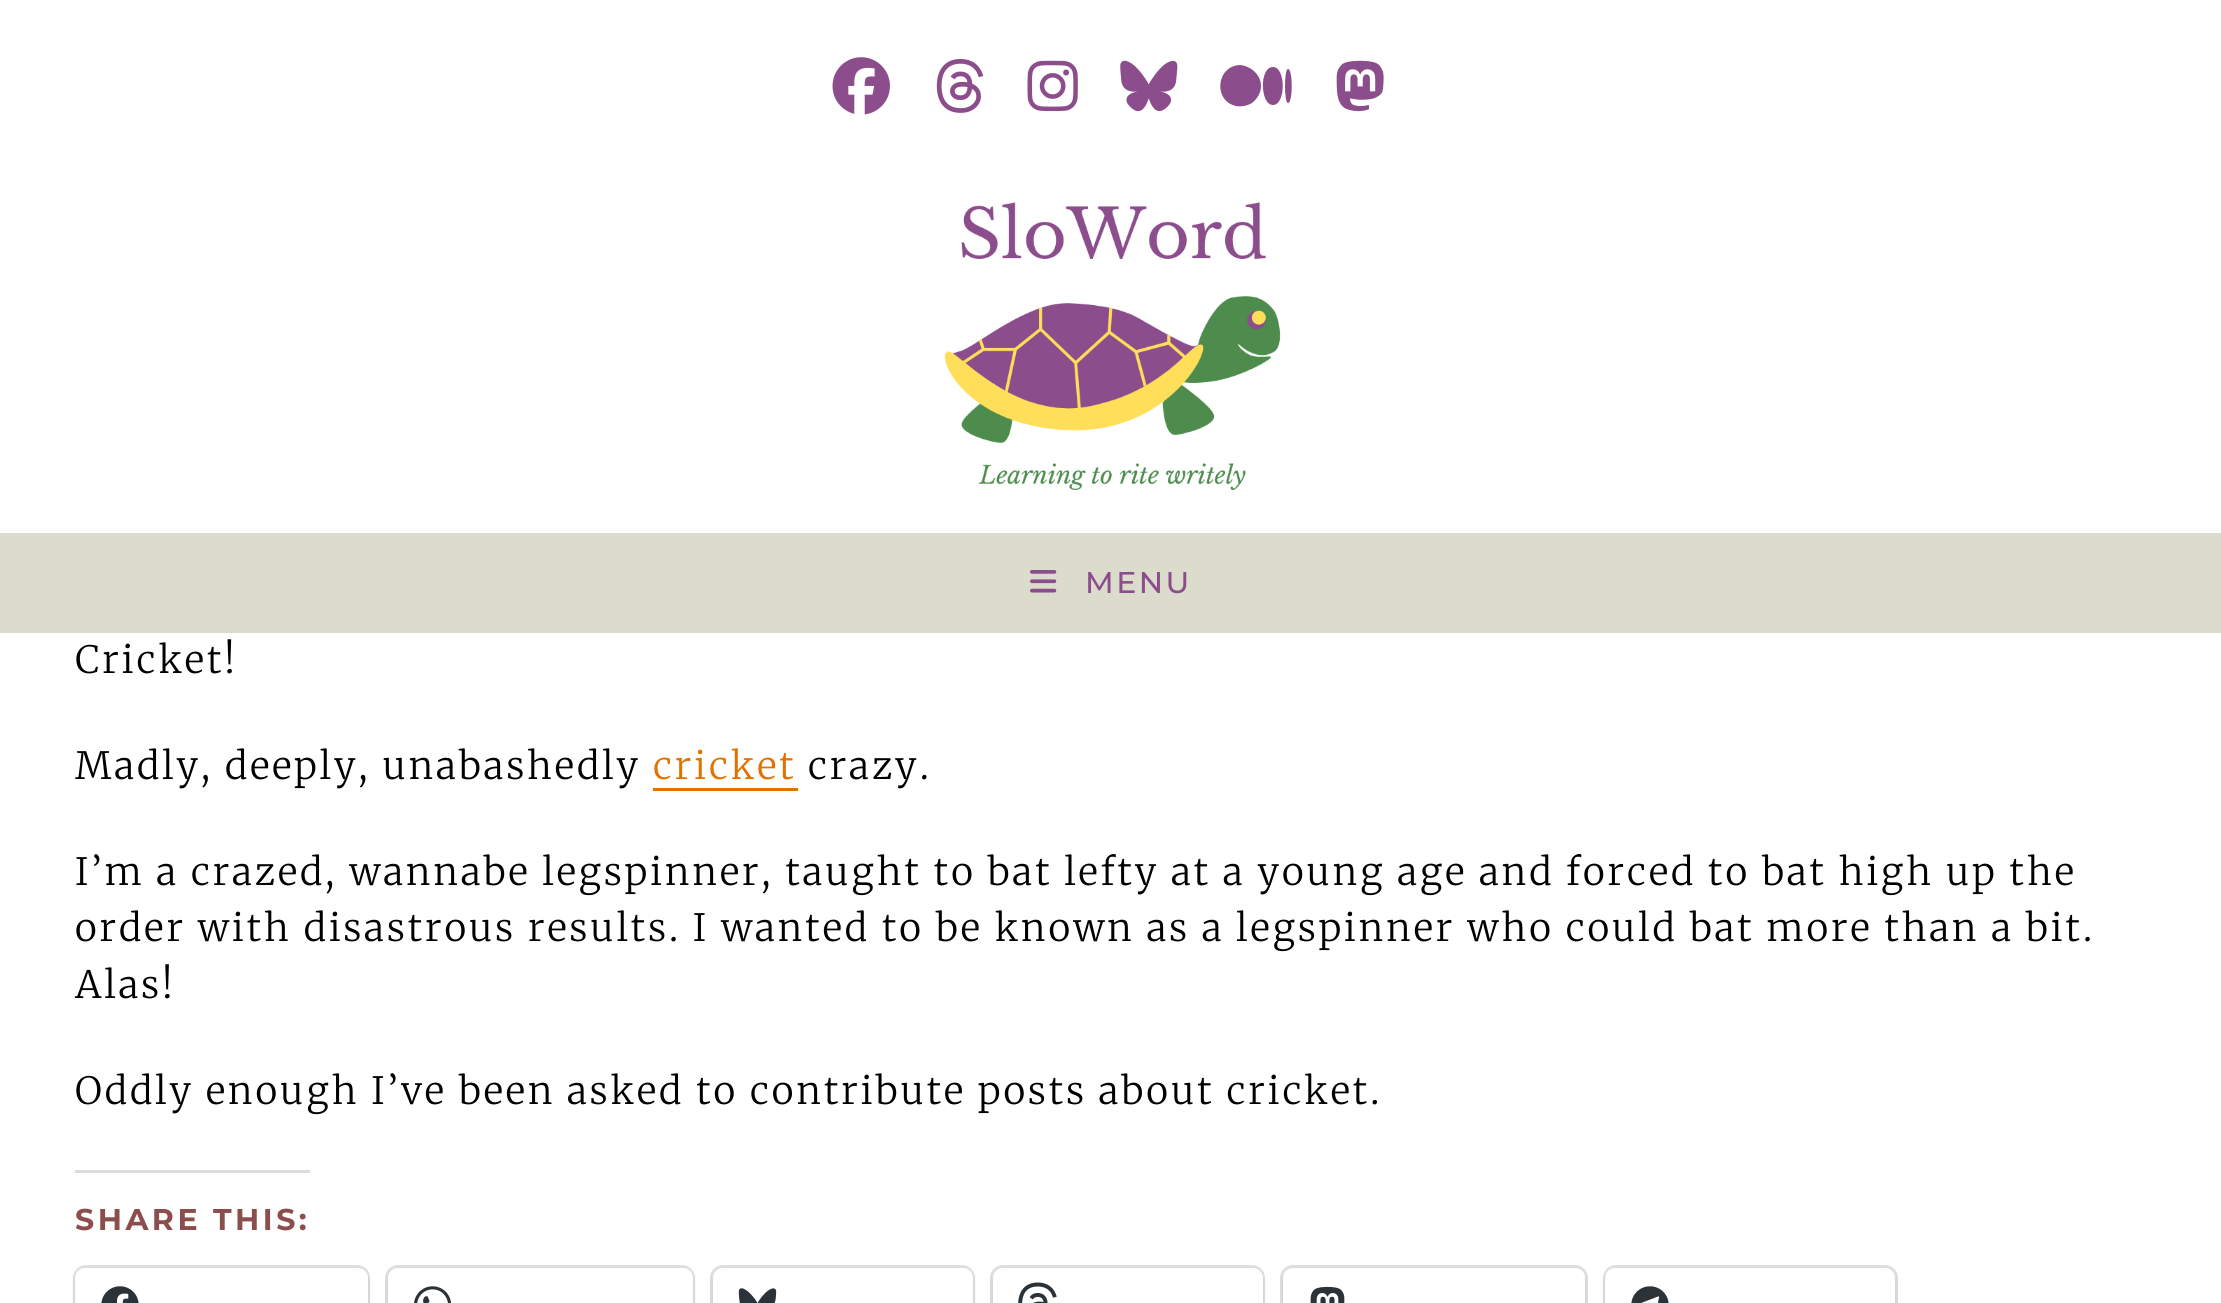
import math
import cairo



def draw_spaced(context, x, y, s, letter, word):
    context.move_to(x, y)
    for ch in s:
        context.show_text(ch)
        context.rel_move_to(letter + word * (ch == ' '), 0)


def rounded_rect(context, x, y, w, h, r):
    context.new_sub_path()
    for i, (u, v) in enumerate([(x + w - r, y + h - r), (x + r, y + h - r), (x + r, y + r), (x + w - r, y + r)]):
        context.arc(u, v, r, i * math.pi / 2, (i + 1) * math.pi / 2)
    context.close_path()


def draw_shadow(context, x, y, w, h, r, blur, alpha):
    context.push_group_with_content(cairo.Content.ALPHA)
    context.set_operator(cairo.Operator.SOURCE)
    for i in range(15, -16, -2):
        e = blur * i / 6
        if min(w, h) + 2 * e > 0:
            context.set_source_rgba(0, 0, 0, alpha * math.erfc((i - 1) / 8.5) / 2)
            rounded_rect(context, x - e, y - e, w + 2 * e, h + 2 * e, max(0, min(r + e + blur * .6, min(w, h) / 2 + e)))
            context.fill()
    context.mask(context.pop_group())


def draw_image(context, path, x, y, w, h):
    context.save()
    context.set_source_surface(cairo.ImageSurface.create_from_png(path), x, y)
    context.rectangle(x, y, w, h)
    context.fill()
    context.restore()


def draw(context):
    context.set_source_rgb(1, 1, 1)
    context.paint()
    draw_image(context, "images/1.png", 832, 57, 58, 58)
    draw_image(context, "images/2.png", 936, 59, 48, 54)
    draw_image(context, "images/3.png", 1027, 60, 51, 52)
    draw_image(context, "images/4.png", 1120, 60, 58, 52)
    context.set_source_rgb(140 / 255, 77 / 255, 140 / 255)
    context.new_path()
    context.move_to(1240, 65)
    context.curve_to(1216, 66, 1213, 101, 1236, 106)
    context.curve_to(1241, 107, 1247, 106, 1252, 103)
    context.curve_to(1257, 99, 1261, 93, 1261, 86)
    context.curve_to(1261, 75, 1251, 66, 1240, 65)
    context.close_path()
    context.move_to(1273, 67)
    context.curve_to(1259, 67, 1260, 105, 1273, 105)
    context.curve_to(1286, 105, 1286, 67, 1273, 67)
    context.close_path()
    context.move_to(1288, 69)
    context.curve_to(1284, 69, 1284, 103, 1288, 103)
    context.curve_to(1293, 103, 1293, 69, 1288, 69)
    context.close_path()
    context.fill()
    draw_image(context, "images/5.png", 1336, 60, 48, 52)
    draw_image(context, "images/6.png", 944, 202, 337, 288)
    context.set_source_rgb(220 / 255, 220 / 255, 205 / 255)
    context.rectangle(0, 533, 2221, 100)
    context.fill()
    draw_image(context, "images/7.png", 1030, 570, 27, 23)
    context.set_source_rgb(226 / 255, 113 / 255, 0)
    context.rectangle(653, 788, 145, 3)
    context.fill()
    context.set_source_rgb(220 / 255, 220 / 255, 222 / 255)
    context.rectangle(75, 1170, 235, 3)
    context.fill()
    rounded_rect(context, 74.5, 1266.5, 294, 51, 11.5)
    context.set_source_rgb(224 / 255, 224 / 255, 224 / 255)
    context.set_line_width(3)
    context.stroke()
    context.set_source_rgb(0, 0, 0)
    draw_shadow(context, 75, 1270, 293, 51, 10, 2.5, 0.12)
    context.set_source_rgb(1, 1, 1)
    rounded_rect(context, 75, 1268, 293, 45, 10)
    context.fill()
    draw_image(context, "images/8.png", 101, 1286, 38, 17)
    rounded_rect(context, 386.5, 1266.5, 307, 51, 11.5)
    context.set_source_rgb(224 / 255, 224 / 255, 224 / 255)
    context.stroke()
    context.set_source_rgb(0, 0, 0)
    draw_shadow(context, 388, 1270, 305, 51, 10, 2.5, 0.12)
    context.set_source_rgb(1, 1, 1)
    rounded_rect(context, 388, 1268, 305, 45, 10)
    context.fill()
    draw_image(context, "images/9.png", 414, 1286, 37, 17)
    rounded_rect(context, 711.5, 1266.5, 262, 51, 11.5)
    context.set_source_rgb(224 / 255, 224 / 255, 224 / 255)
    context.stroke()
    context.set_source_rgb(0, 0, 0)
    draw_shadow(context, 713, 1270, 260, 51, 10, 2.5, 0.12)
    context.set_source_rgb(1, 1, 1)
    rounded_rect(context, 713, 1268, 260, 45, 10)
    context.fill()
    draw_image(context, "images/10.png", 738, 1288, 39, 15)
    rounded_rect(context, 991.5, 1266.5, 272, 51, 11.5)
    context.set_source_rgb(224 / 255, 224 / 255, 224 / 255)
    context.stroke()
    context.set_source_rgb(0, 0, 0)
    draw_shadow(context, 993, 1270, 270, 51, 10, 2.5, 0.12)
    context.set_source_rgb(1, 1, 1)
    rounded_rect(context, 993, 1268, 270, 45, 10)
    context.fill()
    draw_image(context, "images/11.png", 1018, 1282, 39, 21)
    rounded_rect(context, 1281.5, 1266.5, 305, 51, 11.5)
    context.set_source_rgb(224 / 255, 224 / 255, 224 / 255)
    context.stroke()
    context.set_source_rgb(0, 0, 0)
    draw_shadow(context, 1283, 1270, 302, 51, 10, 2.5, 0.12)
    context.set_source_rgb(1, 1, 1)
    rounded_rect(context, 1283, 1268, 302, 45, 10)
    context.fill()
    draw_image(context, "images/12.png", 1310, 1286, 35, 17)
    rounded_rect(context, 1604.5, 1266.5, 292, 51, 11.5)
    context.set_source_rgb(224 / 255, 224 / 255, 224 / 255)
    context.stroke()
    context.set_source_rgb(0, 0, 0)
    draw_shadow(context, 1605, 1270, 290, 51, 10, 2.5, 0.12)
    context.set_source_rgb(1, 1, 1)
    rounded_rect(context, 1605, 1268, 290, 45, 10)
    context.fill()
    draw_image(context, "images/13.png", 1631, 1286, 38, 17)
    context.select_font_face("Montserrat Medium")
    context.set_font_size(30)
    context.set_source_rgb(140 / 255, 77 / 255, 140 / 255)
    draw_spaced(context, 1085, 593, "MENU", 2.5, 0)
    context.select_font_face("Merriweather Light")
    context.set_font_size(37.5)
    context.set_source_rgb(0, 0, 0)
    draw_spaced(context, 75, 673, "Cricket!", 3, 0)
    draw_spaced(context, 75, 779, "Madly, deeply, unabashedly", 3, 0)
    context.set_source_rgb(226 / 255, 113 / 255, 0)
    draw_spaced(context, 653, 779, "cricket", 3, 0)
    context.set_source_rgb(0, 0, 0)
    draw_spaced(context, 808, 779, "crazy.", 3, 0)
    draw_spaced(context, 75, 885, "I’m a crazed, wannabe legspinner, taught to bat lefty at a young age and forced to bat high up the", 3, 0)
    draw_spaced(context, 75, 941, "order with disastrous results. I wanted to be known as a legspinner who could bat more than a bit.", 3, 0)
    draw_spaced(context, 75, 998, "Alas!", 3, 0)
    draw_spaced(context, 75, 1104, "Oddly enough I’ve been asked to contribute posts about cricket.", 3, 0)
    context.select_font_face("Montserrat", cairo.FontSlant.NORMAL, cairo.FontWeight.BOLD)
    context.set_font_size(30)
    context.set_source_rgb(140 / 255, 77 / 255, 77 / 255)
    draw_spaced(context, 75, 1230, "SHARE THIS:", 3.5, 0)


surface = cairo.ImageSurface(cairo.Format.RGB24, 2221, 1303)
context = cairo.Context(surface)
options = cairo.FontOptions()
options.set_hint_metrics(cairo.HintMetrics.OFF)
options.set_hint_style(cairo.HintStyle.NONE)
context.set_font_options(options)
context.set_miter_limit(4)
draw(context)
surface.write_to_png("out.png")
